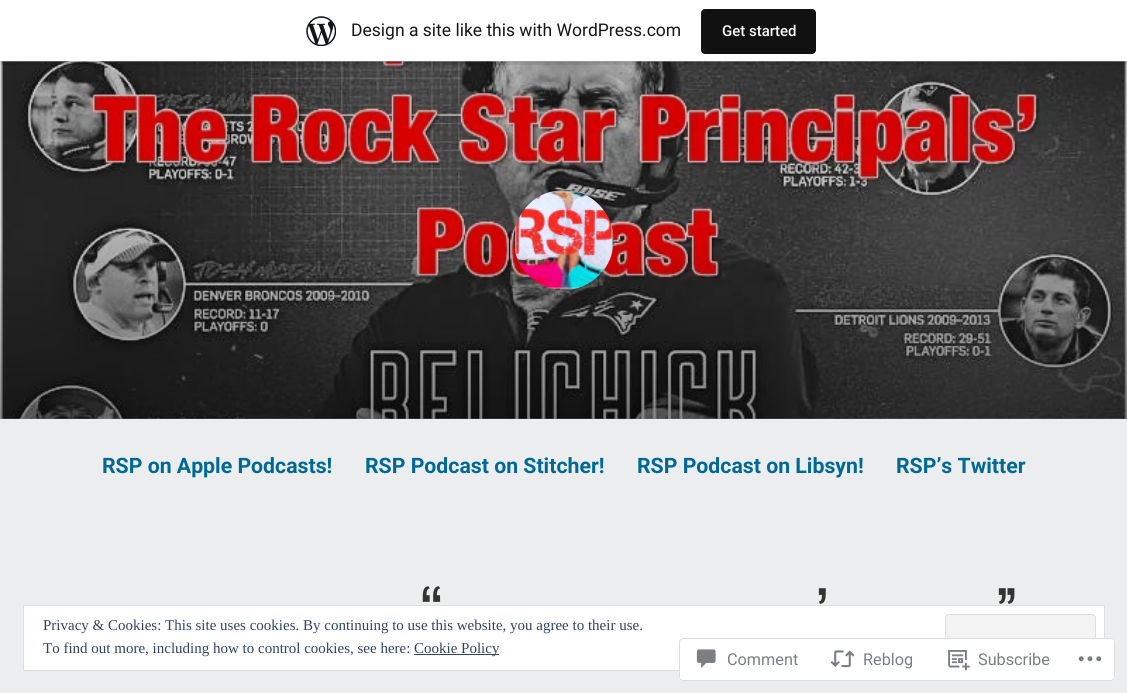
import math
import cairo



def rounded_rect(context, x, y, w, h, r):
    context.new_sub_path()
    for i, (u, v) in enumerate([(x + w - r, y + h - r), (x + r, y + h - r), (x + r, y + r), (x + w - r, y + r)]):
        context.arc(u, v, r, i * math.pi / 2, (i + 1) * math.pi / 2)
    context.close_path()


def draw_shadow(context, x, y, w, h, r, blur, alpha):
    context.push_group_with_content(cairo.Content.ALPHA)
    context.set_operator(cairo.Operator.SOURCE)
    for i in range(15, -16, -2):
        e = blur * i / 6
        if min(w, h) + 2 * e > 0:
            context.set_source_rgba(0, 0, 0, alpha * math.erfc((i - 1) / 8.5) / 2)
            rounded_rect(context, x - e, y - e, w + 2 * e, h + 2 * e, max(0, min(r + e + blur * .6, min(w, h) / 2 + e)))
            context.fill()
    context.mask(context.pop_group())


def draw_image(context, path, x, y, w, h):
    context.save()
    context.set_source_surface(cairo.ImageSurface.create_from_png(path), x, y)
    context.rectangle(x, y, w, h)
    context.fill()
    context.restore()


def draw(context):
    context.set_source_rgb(235 / 255, 237 / 255, 239 / 255)
    context.paint()
    draw_image(context, "images/2.png", 0, 61, 1127, 358)
    gradient = cairo.LinearGradient(564, 61, 564, 419)
    gradient.add_color_stop_rgba(0.5, 0, 0, 0, 0.15)
    gradient.add_color_stop_rgba(1, 0, 0, 0, 0.45)
    context.set_source(gradient)
    context.rectangle(0, 61, 1127, 358)
    context.fill()
    context.set_source_rgb(0, 0, 0)
    draw_shadow(context, 0, 1, 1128, 62, 0, 1, 0.05)
    context.set_source_rgba(0, 0, 0, 0.08)
    context.new_path()
    context.move_to(1, 61)
    context.line_to(1, 65)
    context.line_to(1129, 65)
    context.line_to(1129, 4)
    context.line_to(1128, 4)
    context.line_to(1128, 61)
    context.close_path()
    context.fill()
    context.set_source_rgb(1, 1, 1)
    context.rectangle(0, 0, 1127, 61)
    context.fill()
    draw_image(context, "images/1.png", 306, 16, 30, 30)
    context.set_source_rgb(17 / 255, 17 / 255, 17 / 255)
    rounded_rect(context, 701, 9, 115, 45, 4)
    context.fill()
    draw_image(context, "images/3.png", 513, 190, 101, 100)
    context.set_source_rgb(1, 1, 1)
    context.rectangle(23.5, 605.5, 1081, 65)
    context.fill_preserve()
    context.set_source_rgb(222 / 255, 222 / 255, 222 / 255)
    context.set_line_width(1)
    context.stroke()
    context.set_source_rgb(243 / 255, 243 / 255, 243 / 255)
    rounded_rect(context, 945.5, 614.5, 150, 48, 3.5)
    context.fill_preserve()
    context.set_source_rgb(222 / 255, 222 / 255, 222 / 255)
    context.stroke()
    context.set_source_rgb(46 / 255, 68 / 255, 103 / 255)
    context.rectangle(414, 654, 85, 1)
    context.fill()
    context.set_source_rgba(1, 1, 1, 0.98)
    rounded_rect(context, 679, 638, 436, 43, 4)
    context.fill()
    rounded_rect(context, 679.5, 638.5, 435, 42, 3.5)
    context.set_source_rgba(220 / 255, 220 / 255, 222 / 255, 0.98)
    context.stroke()
    draw_image(context, "images/4.png", 696, 649, 20, 19)
    draw_image(context, "images/5.png", 830, 650, 25, 18)
    draw_image(context, "images/6.png", 948, 650, 22, 21)
    draw_image(context, "images/7.png", 1078, 656, 24, 6)
    context.select_font_face("Roboto")
    context.set_font_size(17.5)
    context.set_source_rgb(23 / 255, 23 / 255, 23 / 255)
    context.move_to(351, 36)
    context.show_text("Design a site like this with WordPress.com")
    context.select_font_face("Roboto Medium")
    context.set_font_size(15)
    context.set_source_rgb(246 / 255, 247 / 255, 247 / 255)
    context.move_to(722, 36)
    context.show_text("Get started")
    context.select_font_face("Roboto", cairo.FontSlant.NORMAL, cairo.FontWeight.BOLD)
    context.set_font_size(21.25)
    context.set_source_rgb(0, 105 / 255, 147 / 255)
    context.move_to(102, 473)
    context.show_text("RSP on Apple Podcasts!")
    context.move_to(365, 473)
    context.show_text("RSP Podcast on Stitcher!")
    context.move_to(637, 473)
    context.show_text("RSP Podcast on Libsyn!")
    context.move_to(896, 473)
    context.show_text("RSP’s Twitter")
    context.select_font_face("Oswald")
    context.set_font_size(59)
    context.set_source_rgb(51 / 255, 51 / 255, 50 / 255)
    context.move_to(421, 636)
    context.show_text("“")
    context.move_to(817, 636)
    context.show_text("’")
    context.move_to(997, 636)
    context.show_text("”")
    context.select_font_face("Liberation Serif")
    context.set_font_size(15)
    context.set_source_rgb(46 / 255, 68 / 255, 103 / 255)
    context.move_to(43, 630)
    context.show_text("Privacy & Cookies: This site uses cookies. By continuing to use this website, you agree to their use.")
    context.move_to(43, 653)
    context.show_text("To find out more, including how to control cookies, see here:")
    context.move_to(414, 653)
    context.show_text("Cookie Policy")
    context.select_font_face("Roboto")
    context.set_font_size(16.25)
    context.set_source_rgb(123 / 255, 127 / 255, 133 / 255)
    context.move_to(727, 665)
    context.show_text("Comment")
    context.move_to(863, 665)
    context.show_text("Reblog")
    context.move_to(978, 665)
    context.show_text("Subscribe")


surface = cairo.ImageSurface(cairo.Format.RGB24, 1127, 693)
context = cairo.Context(surface)
options = cairo.FontOptions()
options.set_hint_metrics(cairo.HintMetrics.OFF)
options.set_hint_style(cairo.HintStyle.NONE)
context.set_font_options(options)
context.set_miter_limit(4)
draw(context)
surface.write_to_png("out.png")
